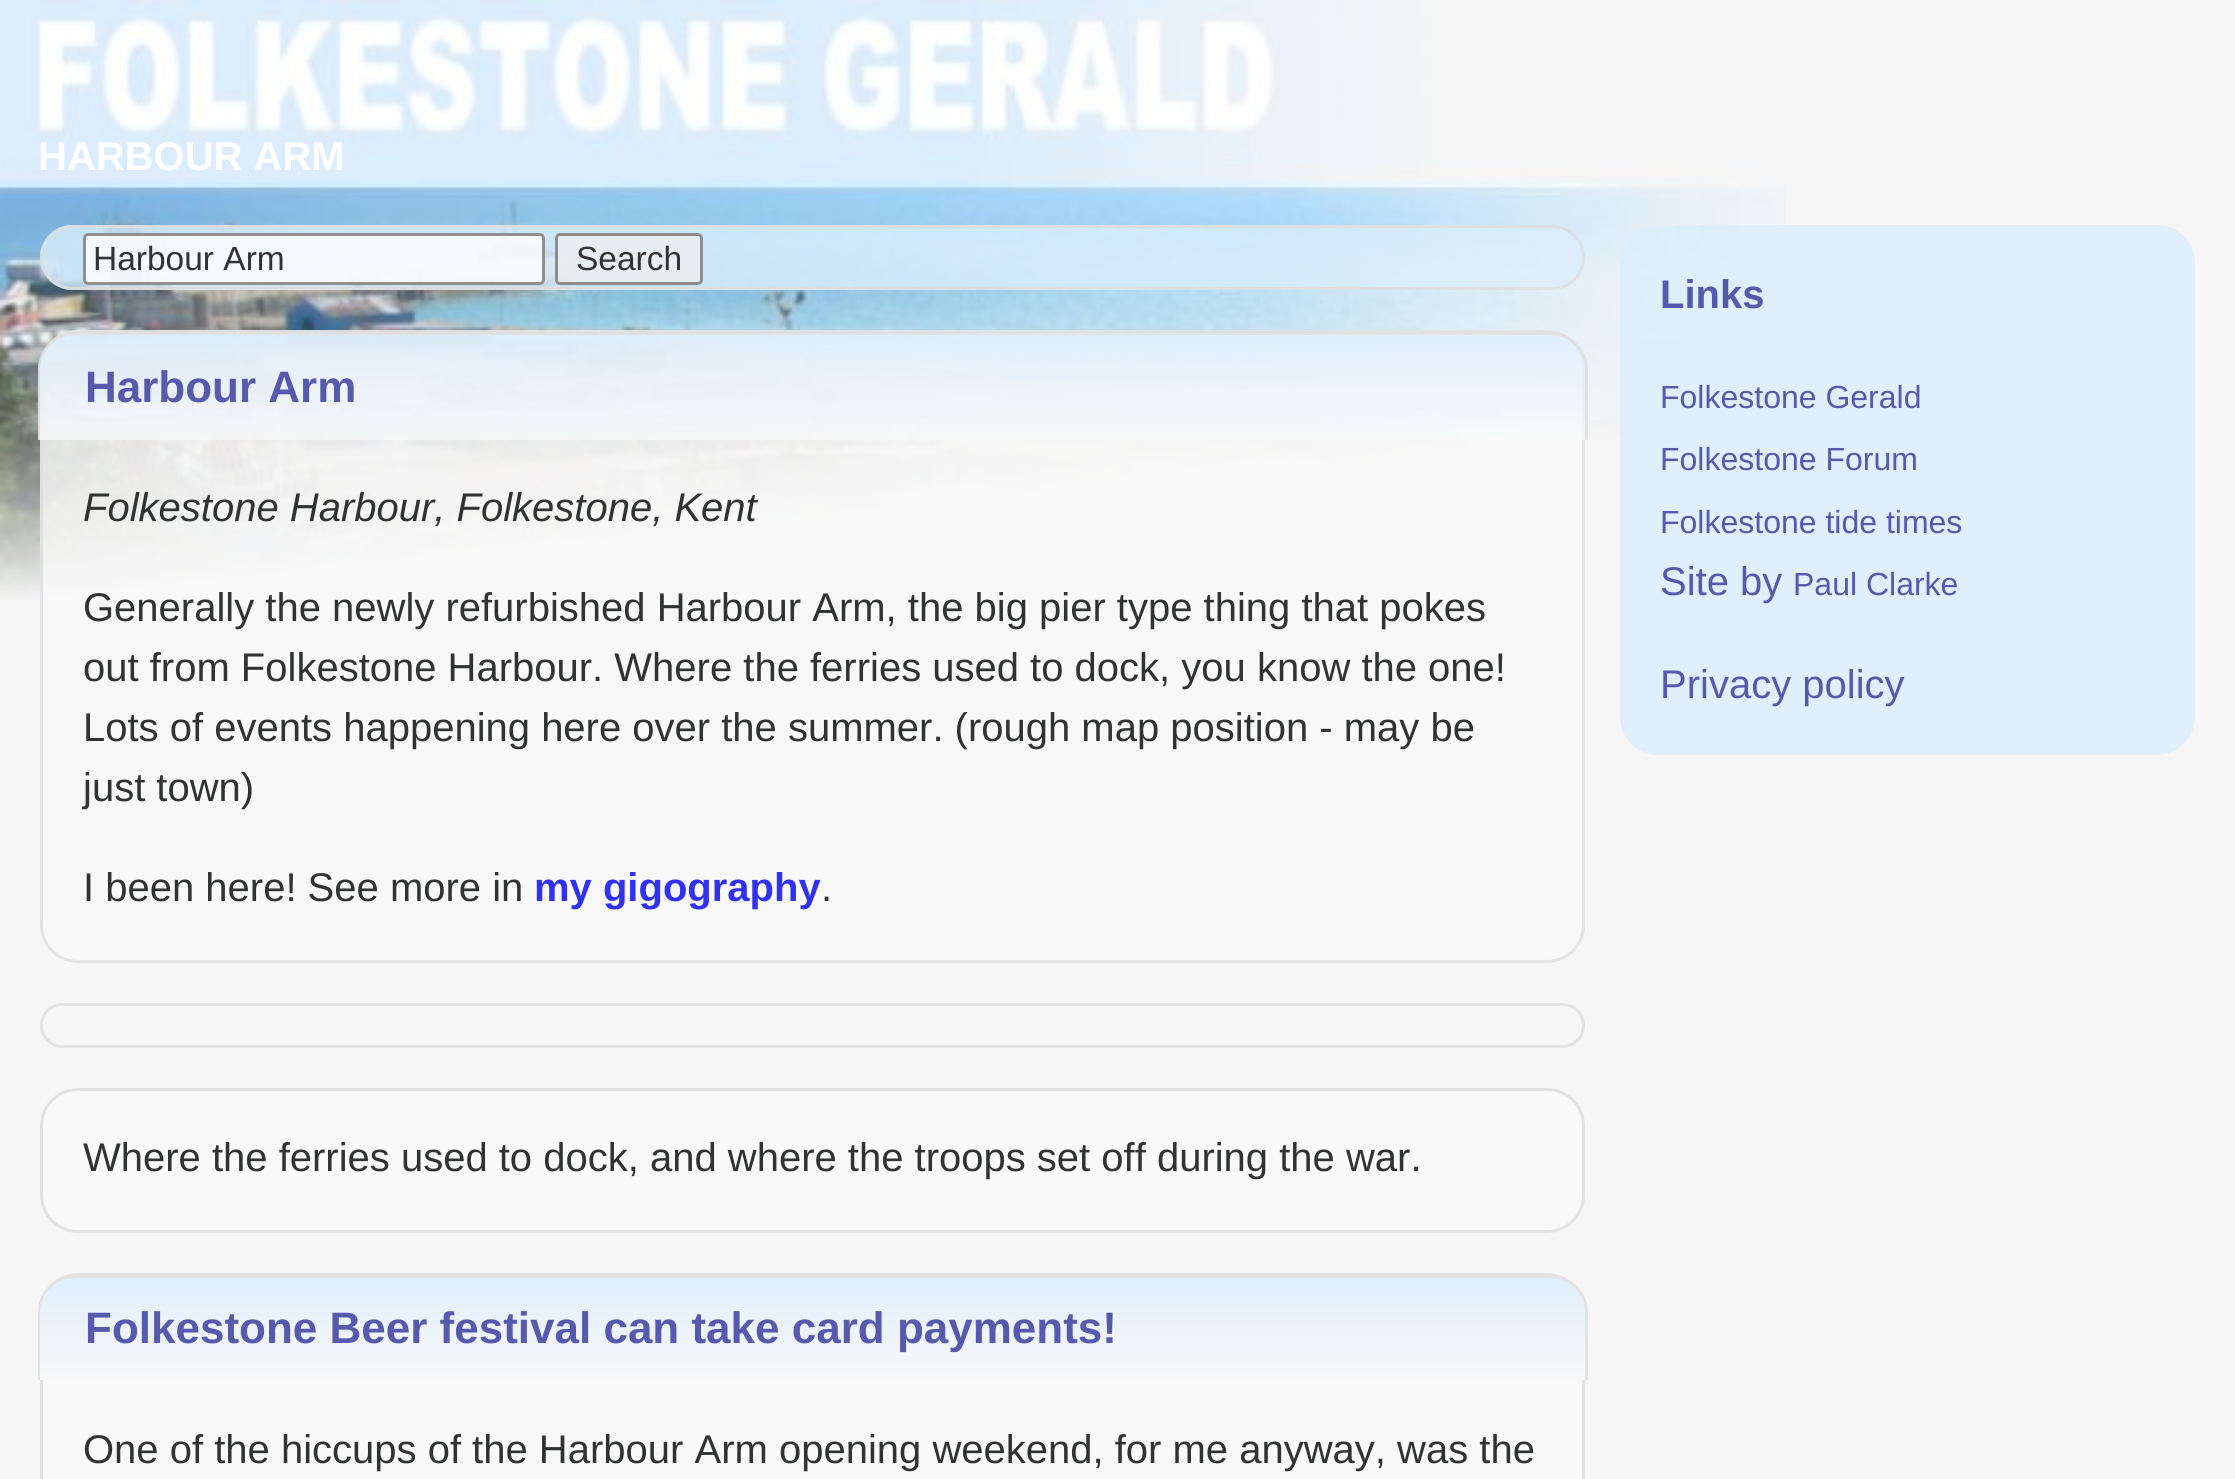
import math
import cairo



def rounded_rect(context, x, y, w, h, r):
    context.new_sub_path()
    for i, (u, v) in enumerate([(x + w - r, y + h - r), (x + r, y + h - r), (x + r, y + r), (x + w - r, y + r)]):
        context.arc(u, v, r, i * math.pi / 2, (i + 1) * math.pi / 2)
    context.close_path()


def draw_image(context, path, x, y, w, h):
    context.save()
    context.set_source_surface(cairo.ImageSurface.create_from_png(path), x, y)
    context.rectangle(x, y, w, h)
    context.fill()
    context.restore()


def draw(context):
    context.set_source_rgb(246 / 255, 246 / 255, 246 / 255)
    context.paint()
    draw_image(context, "images/1.png", 0, 0, 1786, 600)
    context.set_source_rgba(219 / 255, 237 / 255, 252 / 255, 0.8)
    rounded_rect(context, 40, 225, 1545, 65, 32.5)
    context.fill()
    rounded_rect(context, 41.5, 226.5, 1542, 62, 31)
    context.set_source_rgba(221 / 255, 221 / 255, 221 / 255, 0.8)
    context.set_line_width(3)
    context.stroke()
    context.set_source_rgba(1, 1, 1, 0.8)
    rounded_rect(context, 83, 233, 462, 52, 5)
    context.fill()
    rounded_rect(context, 84.5, 234.5, 459, 49, 3.5)
    context.set_source_rgba(118 / 255, 118 / 255, 118 / 255, 0.8)
    context.stroke()
    context.set_source_rgba(239 / 255, 239 / 255, 239 / 255, 0.8)
    rounded_rect(context, 555, 233, 148, 52, 5)
    context.fill()
    rounded_rect(context, 556.5, 234.5, 145, 49, 3.5)
    context.set_source_rgba(118 / 255, 118 / 255, 118 / 255, 0.8)
    context.stroke()
    context.set_source_rgba(249 / 255, 249 / 255, 249 / 255, 0.8)
    rounded_rect(context, 40, 330, 1545, 633, 38)
    context.fill()
    rounded_rect(context, 41.5, 331.5, 1542, 630, 36.5)
    context.set_source_rgba(221 / 255, 221 / 255, 221 / 255, 0.8)
    context.stroke()
    context.save()
    context.new_path()
    context.move_to(76, 333)
    context.line_to(1550, 333)
    context.curve_to(1571, 333, 1588, 350, 1588, 371)
    context.line_to(1588, 440)
    context.line_to(38, 440)
    context.line_to(38, 371)
    context.curve_to(38, 350, 55, 333, 76, 333)
    context.close_path()
    context.clip()
    gradient = cairo.LinearGradient(813, 230, 813, 335)
    gradient.add_color_stop_rgba(0, 219 / 255, 237 / 255, 252 / 255, 0.8)
    gradient.add_color_stop_rgba(1, 249 / 255, 249 / 255, 249 / 255, 0.8)
    context.set_source(gradient)
    context.rectangle(64, 333, 1498, 2)
    context.fill()
    gradient = cairo.LinearGradient(813, 335, 813, 440)
    gradient.add_color_stop_rgba(0, 219 / 255, 237 / 255, 252 / 255, 0.8)
    gradient.add_color_stop_rgba(1, 249 / 255, 249 / 255, 249 / 255, 0.8)
    context.set_source(gradient)
    context.rectangle(38, 335, 1550, 105)
    context.fill()
    context.restore()
    context.set_fill_rule(cairo.FillRule.EVEN_ODD)
    context.new_path()
    context.move_to(75, 332)
    context.line_to(1550, 332)
    context.curve_to(1571, 332, 1588, 349, 1588, 370)
    context.line_to(1588, 440)
    context.line_to(38, 440)
    context.line_to(38, 370)
    context.curve_to(38, 349, 54, 332, 75, 332)
    context.close_path()
    context.move_to(75, 335)
    context.line_to(1550, 335)
    context.curve_to(1569, 335, 1585, 351, 1585, 370)
    context.line_to(1585, 440)
    context.line_to(40, 440)
    context.line_to(40, 370)
    context.curve_to(40, 351, 56, 335, 75, 335)
    context.close_path()
    context.fill()
    context.set_source_rgba(219 / 255, 237 / 255, 252 / 255, 0.8)
    rounded_rect(context, 1620, 225, 575, 530, 38)
    context.fill()
    rounded_rect(context, 41.5, 1004.5, 1542, 42, 21)
    context.set_source_rgb(226 / 255, 226 / 255, 226 / 255)
    context.stroke()
    context.set_source_rgb(249 / 255, 249 / 255, 249 / 255)
    rounded_rect(context, 41.5, 1089.5, 1542, 142, 36.5)
    context.fill_preserve()
    context.set_source_rgb(226 / 255, 226 / 255, 226 / 255)
    context.stroke()
    context.set_source_rgb(249 / 255, 249 / 255, 249 / 255)
    rounded_rect(context, 41.5, 1274.5, 1542, 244, 36.5)
    context.fill_preserve()
    context.set_source_rgb(226 / 255, 226 / 255, 226 / 255)
    context.stroke()
    context.save()
    context.set_fill_rule(cairo.FillRule.WINDING)
    context.new_path()
    context.move_to(76, 1275)
    context.line_to(1550, 1275)
    context.curve_to(1571, 1275, 1588, 1292, 1588, 1313)
    context.line_to(1588, 1380)
    context.line_to(38, 1380)
    context.line_to(38, 1313)
    context.curve_to(38, 1292, 55, 1275, 76, 1275)
    context.close_path()
    context.clip()
    gradient = cairo.LinearGradient(813, 1277, 813, 1380)
    gradient.add_color_stop_rgba(0, 224 / 255, 239 / 255, 251 / 255, 1)
    gradient.add_color_stop_rgba(1, 248 / 255, 248 / 255, 248 / 255, 1)
    context.set_source(gradient)
    context.rectangle(38, 1278, 1550, 102)
    context.fill()
    context.restore()
    context.new_path()
    context.move_to(75, 1275)
    context.line_to(1550, 1275)
    context.curve_to(1571, 1275, 1588, 1292, 1588, 1312)
    context.line_to(1588, 1380)
    context.line_to(38, 1380)
    context.line_to(38, 1312)
    context.curve_to(38, 1292, 54, 1275, 75, 1275)
    context.close_path()
    context.move_to(75, 1278)
    context.line_to(1550, 1278)
    context.curve_to(1569, 1278, 1585, 1293, 1585, 1312)
    context.line_to(1585, 1380)
    context.line_to(40, 1380)
    context.line_to(40, 1312)
    context.curve_to(40, 1293, 56, 1278, 75, 1278)
    context.close_path()
    context.fill()
    context.select_font_face("Liberation Sans", cairo.FontSlant.NORMAL, cairo.FontWeight.BOLD)
    context.set_font_size(40)
    context.set_source_rgb(1, 1, 1)
    context.move_to(38, 170)
    context.show_text("HARBOUR ARM")
    context.select_font_face("Liberation Sans")
    context.set_font_size(33.5)
    context.set_source_rgb(49 / 255, 50 / 255, 50 / 255)
    context.move_to(93, 270)
    context.show_text("Harbour Arm")
    context.move_to(576, 270)
    context.show_text("Search")
    context.select_font_face("Liberation Sans", cairo.FontSlant.NORMAL, cairo.FontWeight.BOLD)
    context.set_font_size(44)
    context.set_source_rgb(87 / 255, 89 / 255, 172 / 255)
    context.move_to(85, 402)
    context.show_text("Harbour Arm")
    context.select_font_face("Liberation Sans", cairo.FontSlant.ITALIC)
    context.set_font_size(40)
    context.set_source_rgb(49 / 255, 50 / 255, 50 / 255)
    context.move_to(83, 521)
    context.show_text("Folkestone Harbour, Folkestone, Kent")
    context.select_font_face("Liberation Sans")
    context.move_to(83, 621)
    context.show_text("Generally the newly refurbished Harbour Arm, the big pier type thing that pokes")
    context.move_to(83, 681)
    context.show_text("out from Folkestone Harbour. Where the ferries used to dock, you know the one!")
    context.move_to(83, 741)
    context.show_text("Lots of events happening here over the summer. (rough map position - may be")
    context.move_to(83, 801)
    context.show_text("just town)")
    context.move_to(83, 901)
    context.show_text("I been here! See more in")
    context.select_font_face("Liberation Sans", cairo.FontSlant.NORMAL, cairo.FontWeight.BOLD)
    context.set_source_rgb(49 / 255, 49 / 255, 240 / 255)
    context.move_to(534, 901)
    context.show_text("my gigography")
    context.select_font_face("Liberation Sans")
    context.set_source_rgb(49 / 255, 50 / 255, 50 / 255)
    context.move_to(821, 901)
    context.show_text(".")
    context.select_font_face("Liberation Sans", cairo.FontSlant.NORMAL, cairo.FontWeight.BOLD)
    context.set_source_rgb(87 / 255, 89 / 255, 172 / 255)
    context.move_to(1660, 308)
    context.show_text("Links")
    context.select_font_face("Liberation Sans")
    context.set_font_size(32)
    context.move_to(1660, 408)
    context.show_text("Folkestone Gerald")
    context.move_to(1660, 470)
    context.show_text("Folkestone Forum")
    context.move_to(1660, 533)
    context.show_text("Folkestone tide times")
    context.set_font_size(40)
    context.move_to(1660, 595)
    context.show_text("Site by")
    context.set_font_size(32)
    context.move_to(1793, 595)
    context.show_text("Paul Clarke")
    context.set_font_size(40)
    context.move_to(1660, 698)
    context.show_text("Privacy policy")
    context.set_source_rgb(49 / 255, 50 / 255, 50 / 255)
    context.move_to(83, 1171)
    context.show_text("Where the ferries used to dock, and where the troops set off during the war.")
    context.select_font_face("Liberation Sans", cairo.FontSlant.NORMAL, cairo.FontWeight.BOLD)
    context.set_font_size(44)
    context.set_source_rgb(87 / 255, 89 / 255, 172 / 255)
    context.move_to(85, 1343)
    context.show_text("Folkestone Beer festival can take card payments!")
    context.select_font_face("Liberation Sans")
    context.set_font_size(40)
    context.set_source_rgb(49 / 255, 50 / 255, 50 / 255)
    context.move_to(83, 1463)
    context.show_text("One of the hiccups of the Harbour Arm opening weekend, for me anyway, was the")


surface = cairo.ImageSurface(cairo.Format.RGB24, 2235, 1479)
context = cairo.Context(surface)
options = cairo.FontOptions()
options.set_hint_metrics(cairo.HintMetrics.OFF)
options.set_hint_style(cairo.HintStyle.NONE)
context.set_font_options(options)
context.set_miter_limit(4)
draw(context)
surface.write_to_png("out.png")
